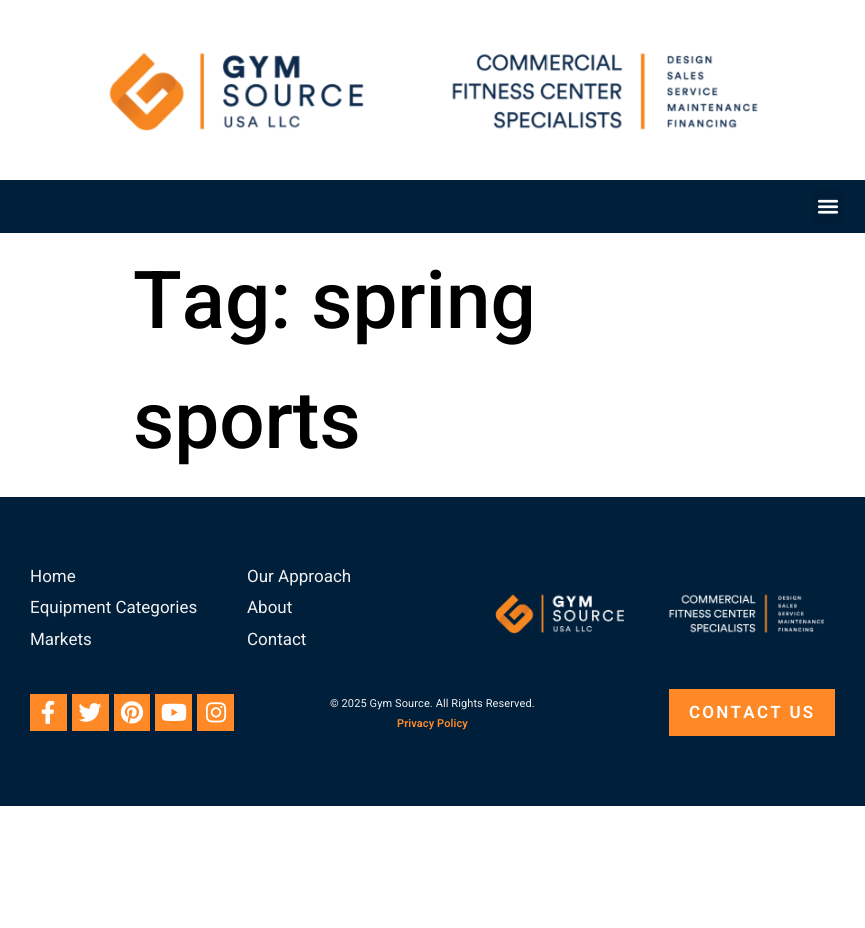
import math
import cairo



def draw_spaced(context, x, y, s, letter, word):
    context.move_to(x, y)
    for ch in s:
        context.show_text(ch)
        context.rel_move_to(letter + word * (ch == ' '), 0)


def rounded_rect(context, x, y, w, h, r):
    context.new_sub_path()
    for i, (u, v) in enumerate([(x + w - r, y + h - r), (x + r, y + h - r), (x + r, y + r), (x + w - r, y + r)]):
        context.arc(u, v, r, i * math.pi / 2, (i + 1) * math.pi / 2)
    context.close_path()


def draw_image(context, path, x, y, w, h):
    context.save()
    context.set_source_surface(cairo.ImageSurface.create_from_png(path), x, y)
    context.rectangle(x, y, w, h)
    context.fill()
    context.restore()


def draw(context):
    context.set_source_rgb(1, 1, 1)
    context.paint()
    draw_image(context, "images/1.png", 109, 52, 649, 79)
    context.set_source_rgb(0, 31 / 255, 59 / 255)
    context.rectangle(0, 180, 865, 53)
    context.fill()
    context.set_source_rgb(0, 29 / 255, 56 / 255)
    rounded_rect(context, 812, 190, 33, 33, 3)
    context.fill()
    draw_image(context, "images/2.png", 817, 199, 22, 15)
    context.set_source_rgb(0, 31 / 255, 59 / 255)
    context.rectangle(0, 497, 865, 309)
    context.fill()
    draw_image(context, "images/3.png", 495, 594, 329, 40)
    context.set_source_rgb(1, 137 / 255, 38 / 255)
    context.rectangle(30, 694, 37, 37)
    context.fill()
    draw_image(context, "images/4.png", 41, 700, 14, 24)
    context.rectangle(72, 694, 37, 37)
    context.fill()
    draw_image(context, "images/5.png", 78, 703, 24, 19)
    context.rectangle(114, 694, 36, 37)
    context.fill()
    draw_image(context, "images/6.png", 120, 701, 24, 23)
    context.rectangle(155, 694, 37, 37)
    context.fill()
    draw_image(context, "images/7.png", 161, 703, 26, 18)
    context.rectangle(197, 694, 37, 37)
    context.fill()
    draw_image(context, "images/8.png", 205, 702, 22, 21)
    context.rectangle(669, 689, 166, 47)
    context.fill()
    context.select_font_face("Roboto Medium")
    context.set_font_size(80)
    context.set_source_rgb(0, 0, 0)
    context.move_to(133, 328)
    context.show_text("Tag: spring")
    context.move_to(133, 448)
    context.show_text("sports")
    context.select_font_face("Roboto")
    context.set_font_size(17)
    context.set_source_rgb(240 / 255, 240 / 255, 240 / 255)
    context.move_to(30, 582)
    context.show_text("Home")
    context.move_to(30, 613)
    context.show_text("Equipment Categories")
    context.move_to(30, 645)
    context.show_text("Markets")
    context.move_to(247, 582)
    context.show_text("Our Approach")
    context.move_to(247, 613)
    context.show_text("About")
    context.move_to(247, 645)
    context.show_text("Contact")
    context.set_font_size(11)
    draw_spaced(context, 330, 707, "© 2025 Gym Source. All Rights Reserved.", 0.1, 0)
    context.select_font_face("Roboto SemiBold")
    context.set_source_rgb(1, 137 / 255, 38 / 255)
    draw_spaced(context, 397, 727, "Privacy Policy", 0.1, 0)
    context.set_font_size(17)
    context.set_source_rgb(1, 1, 1)
    draw_spaced(context, 689, 718, "CONTACT US", 2.25, 0)


surface = cairo.ImageSurface(cairo.Format.RGB24, 865, 928)
context = cairo.Context(surface)
options = cairo.FontOptions()
options.set_hint_metrics(cairo.HintMetrics.OFF)
options.set_hint_style(cairo.HintStyle.NONE)
context.set_font_options(options)
context.set_miter_limit(4)
draw(context)
surface.write_to_png("out.png")
